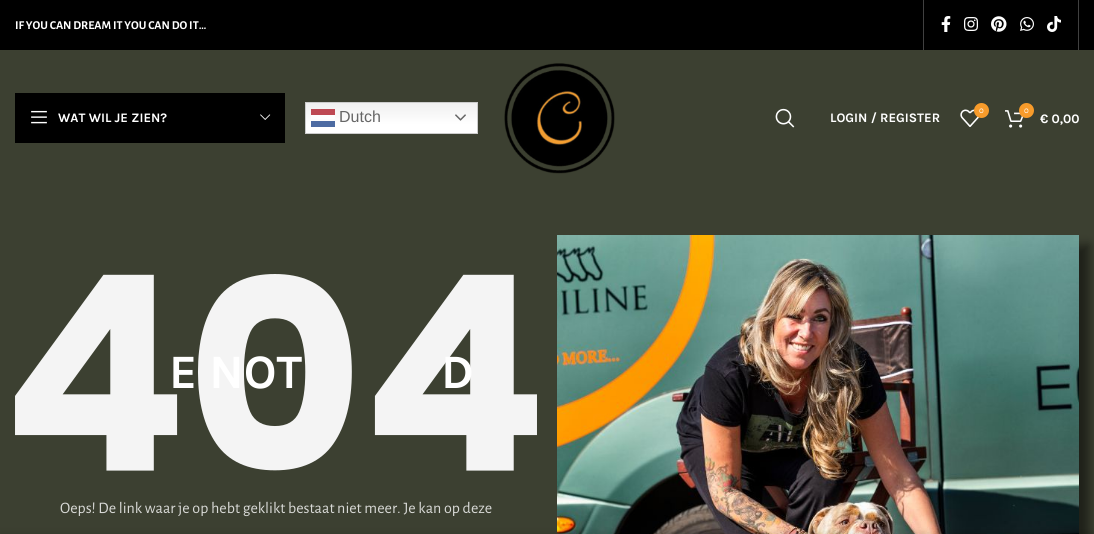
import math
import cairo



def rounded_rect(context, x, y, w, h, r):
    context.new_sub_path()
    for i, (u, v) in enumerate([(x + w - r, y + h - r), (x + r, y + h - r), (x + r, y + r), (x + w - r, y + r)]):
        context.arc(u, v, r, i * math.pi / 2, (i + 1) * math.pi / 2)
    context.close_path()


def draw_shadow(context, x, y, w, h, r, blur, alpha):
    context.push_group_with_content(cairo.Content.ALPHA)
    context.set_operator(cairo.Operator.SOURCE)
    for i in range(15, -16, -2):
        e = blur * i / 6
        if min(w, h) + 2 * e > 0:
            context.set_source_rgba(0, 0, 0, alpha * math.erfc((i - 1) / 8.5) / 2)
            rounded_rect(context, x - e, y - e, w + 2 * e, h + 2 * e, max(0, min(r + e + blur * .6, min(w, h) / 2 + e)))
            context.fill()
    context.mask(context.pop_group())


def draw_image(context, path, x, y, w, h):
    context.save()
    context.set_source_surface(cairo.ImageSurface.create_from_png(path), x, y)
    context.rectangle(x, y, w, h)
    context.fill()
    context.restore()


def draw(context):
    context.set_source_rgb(60 / 255, 64 / 255, 49 / 255)
    context.paint()
    context.set_source_rgb(0, 0, 0)
    context.rectangle(0, 0, 1094, 50)
    context.fill()
    context.set_source_rgb(64 / 255, 64 / 255, 64 / 255)
    context.rectangle(923, 0, 1, 50)
    context.fill()
    draw_image(context, "images/1.png", 941, 16, 10, 16)
    draw_image(context, "images/2.png", 964, 17, 14, 14)
    draw_image(context, "images/3.png", 991, 16, 16, 16)
    draw_image(context, "images/4.png", 1020, 17, 14, 14)
    draw_image(context, "images/5.png", 1047, 16, 14, 16)
    context.rectangle(1078, 0, 1, 50)
    context.fill()
    context.set_source_rgb(0, 0, 0)
    context.rectangle(15, 93, 270, 50)
    context.fill()
    draw_image(context, "images/6.png", 31, 110, 16, 14)
    draw_image(context, "images/7.png", 260, 114, 11, 6)
    gradient = cairo.LinearGradient(392, 102, 392, 134)
    gradient.add_color_stop_rgba(0, 239 / 255, 239 / 255, 239 / 255, 1)
    gradient.add_color_stop_rgba(0.7, 1, 1, 1, 1)
    context.set_source(gradient)
    context.rectangle(306, 103, 171, 30)
    context.fill()
    gradient = cairo.LinearGradient(392, 102, 392, 134)
    gradient.add_color_stop_rgba(0, 252 / 255, 252 / 255, 252 / 255, 1)
    gradient.add_color_stop_rgba(0.7, 1, 1, 1, 1)
    context.set_source(gradient)
    context.rectangle(311, 115, 24, 4)
    context.fill()
    context.rectangle(305.5, 102.5, 172, 31)
    context.set_source_rgb(204 / 255, 204 / 255, 204 / 255)
    context.set_line_width(1)
    context.stroke()
    context.set_source_rgb(190 / 255, 73 / 255, 83 / 255)
    context.rectangle(311, 109, 24, 6)
    context.fill()
    draw_image(context, "images/8.png", 455, 114, 11, 7)
    context.set_source_rgb(77 / 255, 107 / 255, 162 / 255)
    context.rectangle(311, 121, 24, 6)
    context.fill()
    draw_image(context, "images/9.png", 504, 63, 111, 111)
    draw_image(context, "images/10.png", 775, 108, 20, 20)
    draw_image(context, "images/11.png", 960, 109, 20, 18)
    context.set_source_rgb(247 / 255, 155 / 255, 43 / 255)
    context.arc(981.5, 110.5, 7.5, 0, 2 * math.pi)
    context.fill()
    draw_image(context, "images/12.png", 1005, 110, 19, 18)
    context.arc(1026.5, 110.5, 7.5, 0, 2 * math.pi)
    context.fill()
    draw_image(context, "images/13.png", 15, 274, 522, 197)
    context.set_source_rgb(0, 0, 0)
    draw_shadow(context, 567, 245, 522, 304, 0, 5, 0.5)
    draw_image(context, "images/14.png", 557, 235, 522, 299)
    draw_shadow(context, 0, 534, 1094, 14, 0, 4.5, 0.14)
    context.select_font_face("Alegreya Sans", cairo.FontSlant.NORMAL, cairo.FontWeight.BOLD)
    context.set_font_size(12)
    context.set_source_rgb(1, 1, 1)
    context.move_to(15, 29)
    context.show_text("IF YOU CAN DREAM IT YOU CAN DO IT…")
    context.select_font_face("Karla", cairo.FontSlant.NORMAL, cairo.FontWeight.BOLD)
    context.set_font_size(13)
    context.move_to(58, 122)
    context.show_text("WAT WIL JE ZIEN?")
    context.select_font_face("Liberation Sans")
    context.set_font_size(16)
    context.set_source_rgb(102 / 255, 102 / 255, 102 / 255)
    context.move_to(339, 122)
    context.show_text("Dutch")
    context.select_font_face("Karla", cairo.FontSlant.NORMAL, cairo.FontWeight.BOLD)
    context.set_font_size(13)
    context.set_source_rgb(1, 1, 1)
    context.move_to(830, 122)
    context.show_text("LOGIN / REGISTER")
    context.select_font_face("Alegreya Sans")
    context.set_font_size(9)
    context.move_to(979, 113)
    context.show_text("0")
    context.move_to(1024, 113)
    context.show_text("0")
    context.select_font_face("Karla", cairo.FontSlant.NORMAL, cairo.FontWeight.BOLD)
    context.set_font_size(13)
    context.move_to(1040, 123)
    context.show_text("€ 0,00")
    context.set_font_size(48)
    context.move_to(169, 388)
    context.show_text("E NOT")
    context.move_to(441, 388)
    context.show_text("D")
    context.select_font_face("Alegreya Sans")
    context.set_font_size(16)
    context.set_source_rgb(216 / 255, 217 / 255, 214 / 255)
    context.move_to(60, 513)
    context.show_text("Oeps! De link waar je op hebt geklikt bestaat niet meer. Je kan op deze")


surface = cairo.ImageSurface(cairo.Format.RGB24, 1094, 534)
context = cairo.Context(surface)
options = cairo.FontOptions()
options.set_hint_metrics(cairo.HintMetrics.OFF)
options.set_hint_style(cairo.HintStyle.NONE)
context.set_font_options(options)
context.set_miter_limit(4)
draw(context)
surface.write_to_png("out.png")
